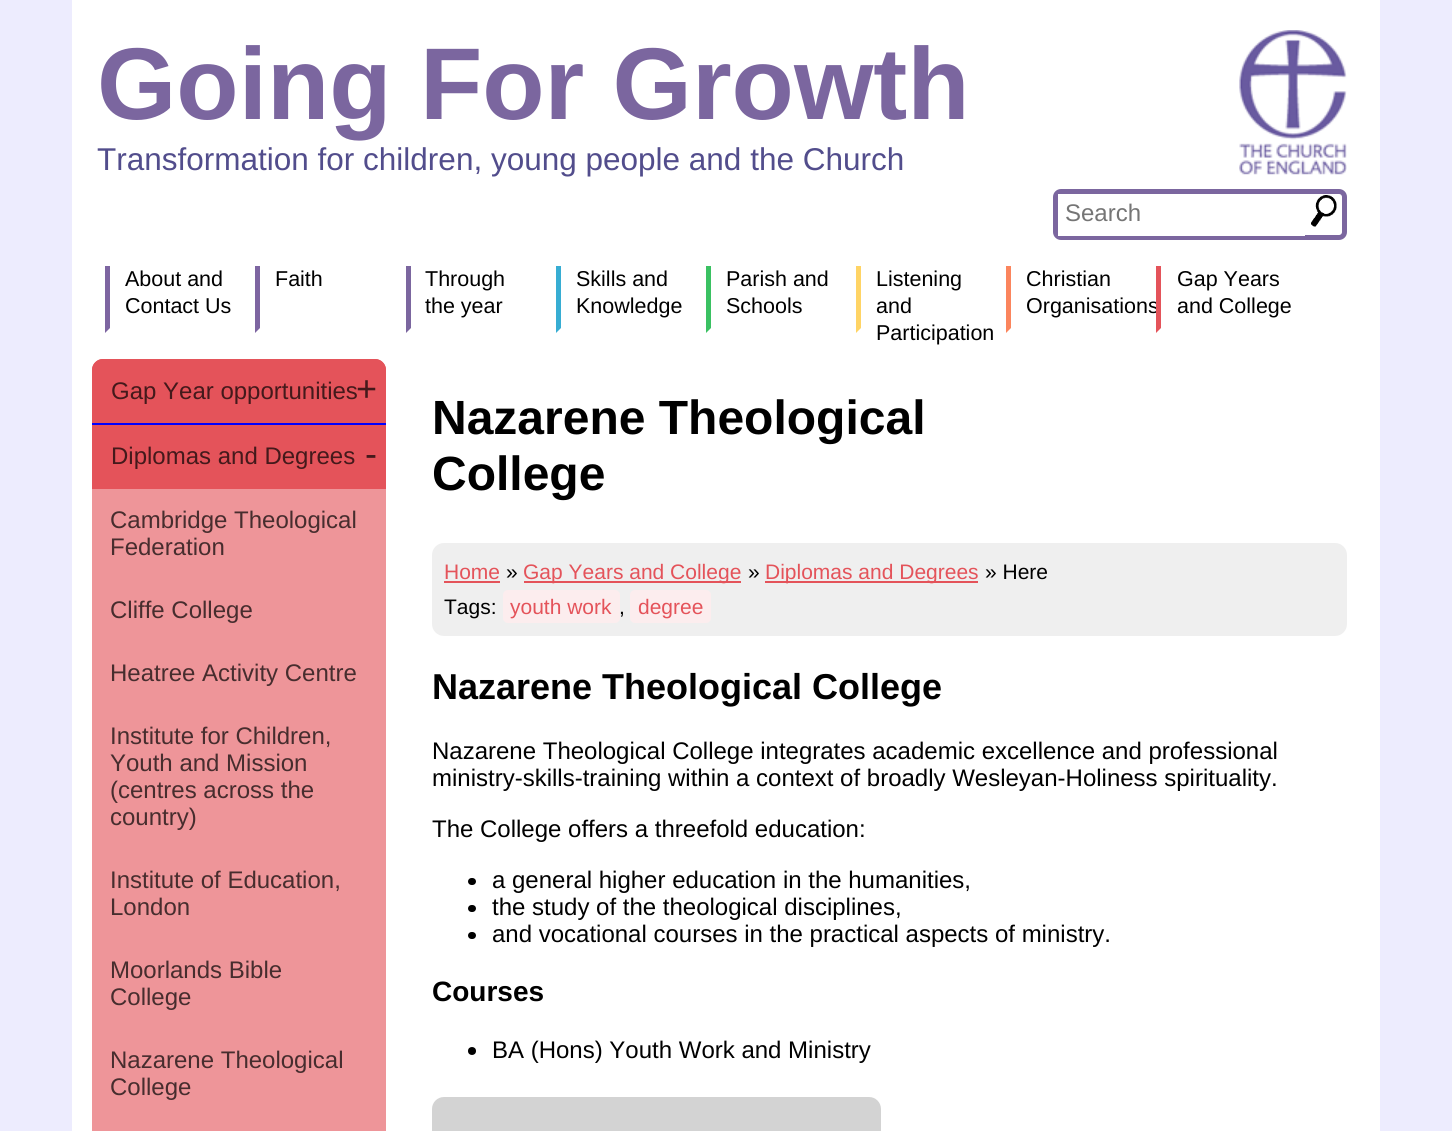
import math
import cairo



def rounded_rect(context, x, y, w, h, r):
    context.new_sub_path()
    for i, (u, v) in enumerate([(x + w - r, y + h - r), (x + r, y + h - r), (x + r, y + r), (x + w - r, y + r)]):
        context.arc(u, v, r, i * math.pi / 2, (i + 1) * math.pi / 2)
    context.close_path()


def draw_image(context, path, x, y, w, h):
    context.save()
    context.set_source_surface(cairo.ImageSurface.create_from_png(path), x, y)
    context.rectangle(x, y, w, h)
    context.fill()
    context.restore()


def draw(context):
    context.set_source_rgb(237 / 255, 236 / 255, 254 / 255)
    context.paint()
    context.set_source_rgb(1, 1, 1)
    context.rectangle(72, 0, 1308, 1131)
    context.fill()
    draw_image(context, "images/1.png", 1239, 30, 108, 145)
    rounded_rect(context, 1055.5, 191.5, 289, 46, 5.5)
    context.set_source_rgb(123 / 255, 102 / 255, 159 / 255)
    context.set_line_width(5)
    context.stroke()
    context.set_source_rgb(1, 1, 1)
    context.rectangle(1058, 194, 247, 42)
    context.fill()
    draw_image(context, "images/2.png", 1311, 195, 26, 32)
    context.set_source_rgb(125 / 255, 101 / 255, 161 / 255)
    context.new_path()
    context.move_to(105, 333)
    context.line_to(105, 266)
    context.line_to(110, 266)
    context.line_to(110, 328)
    context.close_path()
    context.fill()
    context.new_path()
    context.move_to(255, 333)
    context.line_to(255, 266)
    context.line_to(260, 266)
    context.line_to(260, 328)
    context.close_path()
    context.fill()
    context.set_source_rgb(123 / 255, 102 / 255, 159 / 255)
    context.new_path()
    context.move_to(406, 333)
    context.line_to(406, 266)
    context.line_to(411, 266)
    context.line_to(411, 328)
    context.close_path()
    context.fill()
    context.set_source_rgb(55 / 255, 173 / 255, 211 / 255)
    context.new_path()
    context.move_to(556, 333)
    context.line_to(556, 266)
    context.line_to(561, 266)
    context.line_to(561, 328)
    context.close_path()
    context.fill()
    context.set_source_rgb(58 / 255, 193 / 255, 98 / 255)
    context.new_path()
    context.move_to(706, 333)
    context.line_to(706, 266)
    context.line_to(711, 266)
    context.line_to(711, 328)
    context.close_path()
    context.fill()
    context.set_source_rgb(1, 212 / 255, 101 / 255)
    context.new_path()
    context.move_to(856, 333)
    context.line_to(856, 266)
    context.line_to(861, 266)
    context.line_to(861, 328)
    context.close_path()
    context.fill()
    context.set_source_rgb(251 / 255, 133 / 255, 93 / 255)
    context.new_path()
    context.move_to(1006, 333)
    context.line_to(1006, 266)
    context.line_to(1011, 266)
    context.line_to(1011, 328)
    context.close_path()
    context.fill()
    context.set_source_rgb(228 / 255, 83 / 255, 90 / 255)
    rounded_rect(context, 92, 359, 294, 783, 11)
    context.fill()
    context.new_path()
    context.move_to(103, 359)
    context.line_to(375, 359)
    context.curve_to(381, 359, 386, 364, 386, 370)
    context.line_to(386, 425)
    context.line_to(92, 425)
    context.line_to(92, 370)
    context.curve_to(92, 364, 97, 359, 103, 359)
    context.close_path()
    context.fill()
    context.set_source_rgb(0, 0, 1)
    context.rectangle(92, 423, 294, 2)
    context.fill()
    context.set_source_rgb(238 / 255, 149 / 255, 153 / 255)
    context.rectangle(92, 489, 294, 642)
    context.fill()
    context.set_source_rgb(239 / 255, 239 / 255, 239 / 255)
    rounded_rect(context, 432, 543, 915, 93, 12)
    context.fill()
    context.set_source_rgb(228 / 255, 83 / 255, 90 / 255)
    context.rectangle(444, 581, 56, 2)
    context.fill()
    context.rectangle(524, 581, 217, 2)
    context.fill()
    context.rectangle(765, 581, 213, 2)
    context.fill()
    context.set_source_rgb(252 / 255, 237 / 255, 238 / 255)
    rounded_rect(context, 503, 590, 117, 33, 5)
    context.fill()
    rounded_rect(context, 630, 590, 81, 33, 5)
    context.fill()
    context.set_source_rgb(0, 0, 0)
    rounded_rect(context, 468, 878, 8, 7, 3.5)
    context.fill()
    rounded_rect(context, 468, 905, 8, 7, 3.5)
    context.fill()
    rounded_rect(context, 468, 932, 8, 7, 3.5)
    context.fill()
    context.arc(472, 1051, 4, 0, 2 * math.pi)
    context.fill()
    context.set_source_rgb(211 / 255, 211 / 255, 211 / 255)
    rounded_rect(context, 432, 1097, 449, 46, 12)
    context.fill()
    context.select_font_face("Liberation Sans", cairo.FontSlant.NORMAL, cairo.FontWeight.BOLD)
    context.set_font_size(102)
    context.set_source_rgb(123 / 255, 102 / 255, 159 / 255)
    context.move_to(97, 119)
    context.show_text("Going For Growth")
    context.select_font_face("Liberation Sans")
    context.set_font_size(31.5)
    context.set_source_rgb(82 / 255, 77 / 255, 140 / 255)
    context.move_to(97, 170)
    context.show_text("Transformation for children, young people and the Church")
    context.set_font_size(24)
    context.set_source_rgb(117 / 255, 117 / 255, 117 / 255)
    context.move_to(1065, 221)
    context.show_text("Search")
    context.set_font_size(21.5)
    context.set_source_rgb(0, 0, 0)
    context.move_to(125, 286)
    context.show_text("About and")
    context.move_to(125, 313)
    context.show_text("Contact Us")
    context.move_to(275, 286)
    context.show_text("Faith")
    context.move_to(425, 286)
    context.show_text("Through")
    context.move_to(425, 313)
    context.show_text("the year")
    context.move_to(576, 286)
    context.show_text("Skills and")
    context.move_to(576, 313)
    context.show_text("Knowledge")
    context.move_to(726, 286)
    context.show_text("Parish and")
    context.move_to(726, 313)
    context.show_text("Schools")
    context.move_to(876, 286)
    context.show_text("Listening")
    context.move_to(876, 313)
    context.show_text("and")
    context.move_to(876, 340)
    context.show_text("Participation")
    context.move_to(1026, 286)
    context.show_text("Christian")
    context.move_to(1026, 313)
    context.show_text("Organisations")
    context.set_source_rgb(228 / 255, 83 / 255, 90 / 255)
    context.new_path()
    context.move_to(1156, 333)
    context.line_to(1156, 266)
    context.line_to(1161, 266)
    context.line_to(1161, 328)
    context.close_path()
    context.fill()
    context.set_source_rgb(0, 0, 0)
    context.move_to(1177, 286)
    context.show_text("Gap Years")
    context.move_to(1177, 313)
    context.show_text("and College")
    context.set_font_size(24)
    context.set_source_rgb(68 / 255, 25 / 255, 27 / 255)
    context.move_to(111, 399)
    context.show_text("Gap Year opportunities")
    context.set_font_size(36)
    context.move_to(356, 401)
    context.show_text("+")
    context.set_font_size(24)
    context.move_to(111, 464)
    context.show_text("Diplomas and Degrees")
    context.set_font_size(36)
    context.move_to(365, 466)
    context.show_text("-")
    context.set_font_size(24)
    context.set_source_rgb(71 / 255, 45 / 255, 46 / 255)
    context.move_to(110, 528)
    context.show_text("Cambridge Theological")
    context.move_to(110, 555)
    context.show_text("Federation")
    context.move_to(110, 618)
    context.show_text("Cliffe College")
    context.move_to(110, 681)
    context.show_text("Heatree Activity Centre")
    context.move_to(110, 744)
    context.show_text("Institute for Children,")
    context.move_to(110, 771)
    context.show_text("Youth and Mission")
    context.move_to(110, 798)
    context.show_text("(centres across the")
    context.move_to(110, 825)
    context.show_text("country)")
    context.move_to(110, 888)
    context.show_text("Institute of Education,")
    context.move_to(110, 915)
    context.show_text("London")
    context.move_to(110, 978)
    context.show_text("Moorlands Bible")
    context.move_to(110, 1005)
    context.show_text("College")
    context.move_to(110, 1068)
    context.show_text("Nazarene Theological")
    context.move_to(110, 1095)
    context.show_text("College")
    context.select_font_face("Liberation Sans", cairo.FontSlant.NORMAL, cairo.FontWeight.BOLD)
    context.set_font_size(48)
    context.set_source_rgb(0, 0, 0)
    context.move_to(432, 434)
    context.show_text("Nazarene Theological")
    context.move_to(432, 490)
    context.show_text("College")
    context.select_font_face("Liberation Sans")
    context.set_font_size(21)
    context.set_source_rgb(228 / 255, 83 / 255, 90 / 255)
    context.move_to(444, 579)
    context.show_text("Home")
    context.set_source_rgb(0, 0, 0)
    context.move_to(506, 579)
    context.show_text("»")
    context.set_source_rgb(228 / 255, 83 / 255, 90 / 255)
    context.move_to(523, 579)
    context.show_text("Gap Years and College")
    context.set_source_rgb(0, 0, 0)
    context.move_to(748, 579)
    context.show_text("»")
    context.set_source_rgb(228 / 255, 83 / 255, 90 / 255)
    context.move_to(765, 579)
    context.show_text("Diplomas and Degrees")
    context.set_source_rgb(0, 0, 0)
    context.move_to(985, 579)
    context.show_text("» Here")
    context.move_to(444, 614)
    context.show_text("Tags:")
    context.set_source_rgb(228 / 255, 83 / 255, 90 / 255)
    context.move_to(510, 614)
    context.show_text("youth work")
    context.set_source_rgb(0, 0, 0)
    context.move_to(619, 614)
    context.show_text(",")
    context.set_source_rgb(228 / 255, 83 / 255, 90 / 255)
    context.move_to(638, 614)
    context.show_text("degree")
    context.select_font_face("Liberation Sans", cairo.FontSlant.NORMAL, cairo.FontWeight.BOLD)
    context.set_font_size(36)
    context.set_source_rgb(0, 0, 0)
    context.move_to(432, 699)
    context.show_text("Nazarene Theological College")
    context.select_font_face("Liberation Sans")
    context.set_font_size(24)
    context.move_to(432, 759)
    context.show_text("Nazarene Theological College integrates academic excellence and professional")
    context.move_to(432, 786)
    context.show_text("ministry-skills-training within a context of broadly Wesleyan-Holiness spirituality.")
    context.move_to(432, 837)
    context.show_text("The College offers a threefold education:")
    context.move_to(492, 888)
    context.show_text("a general higher education in the humanities,")
    context.move_to(492, 915)
    context.show_text("the study of the theological disciplines,")
    context.move_to(492, 942)
    context.show_text("and vocational courses in the practical aspects of ministry.")
    context.select_font_face("Liberation Sans", cairo.FontSlant.NORMAL, cairo.FontWeight.BOLD)
    context.set_font_size(28)
    context.move_to(432, 1001)
    context.show_text("Courses")
    context.select_font_face("Liberation Sans")
    context.set_font_size(24)
    context.move_to(492, 1058)
    context.show_text("BA (Hons) Youth Work and Ministry")


surface = cairo.ImageSurface(cairo.Format.RGB24, 1452, 1131)
context = cairo.Context(surface)
options = cairo.FontOptions()
options.set_hint_metrics(cairo.HintMetrics.OFF)
options.set_hint_style(cairo.HintStyle.NONE)
context.set_font_options(options)
context.set_miter_limit(4)
draw(context)
surface.write_to_png("out.png")
